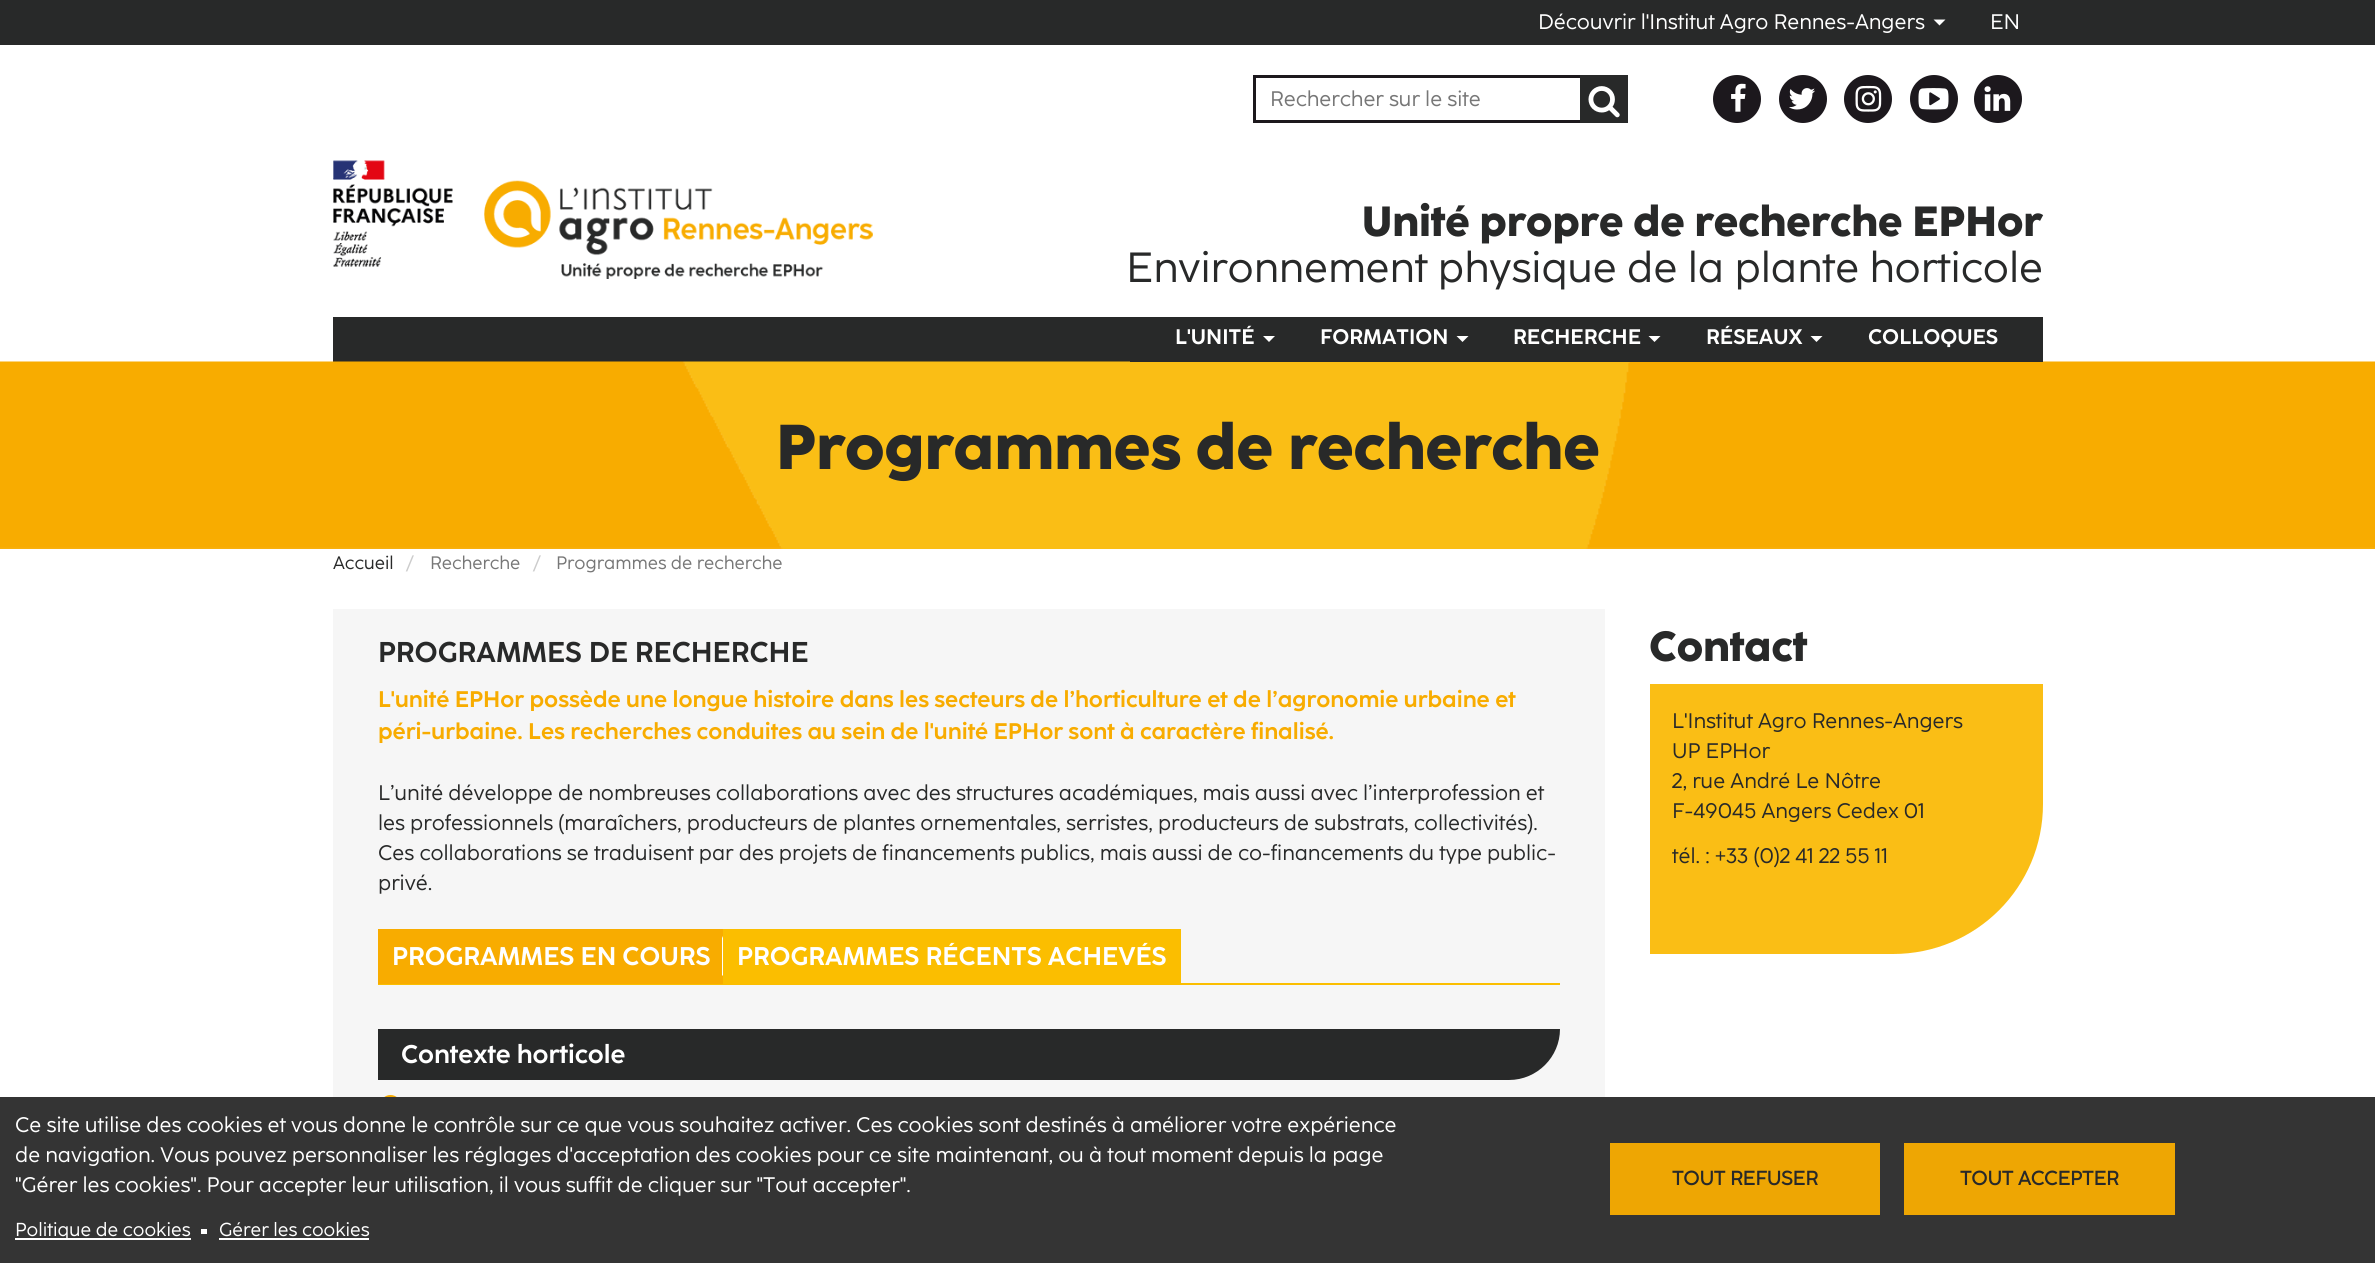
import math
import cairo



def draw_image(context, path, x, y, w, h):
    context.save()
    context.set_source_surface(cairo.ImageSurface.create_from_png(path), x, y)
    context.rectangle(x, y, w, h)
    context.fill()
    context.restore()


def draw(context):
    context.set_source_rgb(1, 1, 1)
    context.paint()
    context.set_source_rgb(40 / 255, 41 / 255, 41 / 255)
    context.rectangle(0, 0, 2375, 45)
    context.fill()
    context.set_source_rgb(1, 1, 1)
    context.new_path()
    context.move_to(1933.5, 19.5)
    context.line_to(1945.5, 19.5)
    context.line_to(1939.5, 25.5)
    context.close_path()
    context.fill()
    context.new_path()
    context.move_to(1254.5, 76.5)
    context.line_to(1626.5, 76.5)
    context.line_to(1626.5, 121.5)
    context.line_to(1254.5, 121.5)
    context.close_path()
    context.set_source_rgb(28 / 255, 24 / 255, 29 / 255)
    context.set_line_width(3)
    context.stroke()
    context.set_source_rgb(40 / 255, 41 / 255, 41 / 255)
    context.rectangle(1580, 75, 48, 48)
    context.fill()
    draw_image(context, "images/1.png", 1588, 86, 32, 32)
    context.set_source_rgb(28 / 255, 24 / 255, 29 / 255)
    context.arc(1737, 99, 24, 0, 2 * math.pi)
    context.fill()
    draw_image(context, "images/2.png", 1731, 83, 15, 29)
    context.arc(1803, 99, 24, 0, 2 * math.pi)
    context.fill()
    draw_image(context, "images/3.png", 1789, 88, 26, 22)
    context.arc(1868, 99, 24, 0, 2 * math.pi)
    context.fill()
    draw_image(context, "images/4.png", 1855, 85, 27, 27)
    context.arc(1934, 99, 24, 0, 2 * math.pi)
    context.fill()
    draw_image(context, "images/5.png", 1918, 88, 31, 22)
    context.arc(1998, 99, 24, 0, 2 * math.pi)
    context.fill()
    draw_image(context, "images/6.png", 1984, 86, 27, 25)
    draw_image(context, "images/7.png", 333, 160, 540, 119)
    context.set_source_rgb(40 / 255, 41 / 255, 41 / 255)
    context.rectangle(333, 317, 797, 45)
    context.fill()
    draw_image(context, "images/8.png", 0, 361, 2375, 188)
    context.rectangle(1130, 317, 913, 45)
    context.fill()
    context.set_source_rgb(1, 1, 1)
    context.new_path()
    context.move_to(1263, 336)
    context.line_to(1275, 336)
    context.line_to(1269, 342)
    context.close_path()
    context.fill()
    context.new_path()
    context.move_to(1456.5, 336)
    context.line_to(1468.5, 336)
    context.line_to(1462.5, 342)
    context.close_path()
    context.fill()
    context.new_path()
    context.move_to(1648.5, 336)
    context.line_to(1660.5, 336)
    context.line_to(1654.5, 342)
    context.close_path()
    context.fill()
    context.new_path()
    context.move_to(1810.5, 336)
    context.line_to(1822.5, 336)
    context.line_to(1816.5, 342)
    context.close_path()
    context.fill()
    context.set_source_rgb(250 / 255, 190 / 255, 21 / 255)
    context.new_path()
    context.move_to(1650, 684)
    context.line_to(2043, 684)
    context.line_to(2043, 804)
    context.curve_to(2043, 887, 1976, 954, 1893, 954)
    context.line_to(1650, 954)
    context.close_path()
    context.fill()
    context.set_source_rgb(246 / 255, 246 / 255, 246 / 255)
    context.rectangle(333, 609, 1272, 488)
    context.fill()
    context.set_source_rgb(251 / 255, 190 / 255, 0)
    context.rectangle(378, 983, 1182, 2)
    context.fill()
    context.set_source_rgb(248 / 255, 172 / 255, 0)
    context.rectangle(378, 929, 345, 55)
    context.fill()
    context.set_source_rgb(1, 1, 1)
    context.new_path()
    context.move_to(723, 936)
    context.line_to(723, 976)
    context.line_to(722, 975)
    context.line_to(722, 938)
    context.close_path()
    context.fill()
    context.set_source_rgb(251 / 255, 190 / 255, 0)
    context.rectangle(723, 929, 458, 54)
    context.fill()
    context.new_path()
    context.move_to(380.5, 1134.5)
    context.curve_to(379.5, 1133.5, 379, 1132.5, 379, 1131)
    context.line_to(379, 1020)
    context.curve_to(379, 1018.5, 379.5, 1017.5, 380.5, 1016.5)
    context.curve_to(381.5, 1015.5, 382.5, 1015, 384, 1015)
    context.line_to(1554, 1015)
    context.curve_to(1555.5, 1015, 1556.5, 1015.5, 1557.5, 1016.5)
    context.curve_to(1558.5, 1017.5, 1559, 1018.5, 1559, 1020)
    context.line_to(1559, 1131)
    context.curve_to(1559, 1132.5, 1558.5, 1133.5, 1557.5, 1134.5)
    context.set_source_rgb(246 / 255, 246 / 255, 246 / 255)
    context.set_line_width(1.5)
    context.stroke()
    context.set_source_rgb(248 / 255, 172 / 255, 0)
    context.arc(390.5, 1105.5, 10.5, 0, 2 * math.pi)
    context.fill()
    context.set_source_rgb(40 / 255, 41 / 255, 41 / 255)
    context.new_path()
    context.move_to(378, 1029)
    context.line_to(1560, 1029)
    context.curve_to(1560, 1057, 1537, 1080, 1509, 1080)
    context.line_to(378, 1080)
    context.close_path()
    context.fill()
    context.set_source_rgb(52 / 255, 52 / 255, 52 / 255)
    context.rectangle(0, 1097, 2375, 166)
    context.fill()
    context.set_source_rgb(1, 1, 1)
    context.rectangle(15, 1238, 176, 2)
    context.fill()
    context.rectangle(201, 1229, 6, 5)
    context.fill()
    context.rectangle(219, 1238, 150, 2)
    context.fill()
    context.set_source_rgb(238 / 255, 166 / 255, 3 / 255)
    context.rectangle(1610, 1143, 270, 72)
    context.fill()
    context.rectangle(1904, 1143, 271, 72)
    context.fill()
    context.select_font_face("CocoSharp")
    context.set_font_size(21)
    context.set_source_rgb(1, 1, 1)
    context.move_to(1538, 29)
    context.show_text("Découvrir l'Institut Agro Rennes-Angers")
    context.move_to(1990, 29)
    context.show_text("EN")
    context.set_source_rgb(119 / 255, 119 / 255, 119 / 255)
    context.move_to(1270, 106)
    context.show_text("Rechercher sur le site")
    context.select_font_face("CocoSharp ExtraBold")
    context.set_font_size(42)
    context.set_source_rgb(40 / 255, 41 / 255, 41 / 255)
    context.move_to(1362, 236)
    context.show_text("Unité propre de recherche EPHor")
    context.select_font_face("CocoSharp")
    context.move_to(1126, 282)
    context.show_text("Environnement physique de la plante horticole")
    context.select_font_face("CocoSharp", cairo.FontSlant.NORMAL, cairo.FontWeight.BOLD)
    context.set_font_size(21)
    context.set_source_rgb(1, 1, 1)
    context.move_to(1175, 344)
    context.show_text("L'UNITÉ")
    context.move_to(1320, 344)
    context.show_text("FORMATION")
    context.move_to(1513, 344)
    context.show_text("RECHERCHE")
    context.move_to(1706, 344)
    context.show_text("RÉSEAUX")
    context.move_to(1868, 344)
    context.show_text("COLLOQUES")
    context.select_font_face("CocoSharp ExtraBold")
    context.set_font_size(63)
    context.set_source_rgb(40 / 255, 41 / 255, 41 / 255)
    context.move_to(776, 469)
    context.show_text("Programmes de recherche")
    context.select_font_face("CocoSharp")
    context.set_font_size(18)
    context.move_to(333, 569)
    context.show_text("Accueil")
    context.set_source_rgb(204 / 255, 204 / 255, 204 / 255)
    context.move_to(406, 569)
    context.show_text("/")
    context.set_source_rgb(119 / 255, 119 / 255, 119 / 255)
    context.move_to(430, 569)
    context.show_text("Recherche")
    context.set_source_rgb(204 / 255, 204 / 255, 204 / 255)
    context.move_to(533, 569)
    context.show_text("/")
    context.set_source_rgb(119 / 255, 119 / 255, 119 / 255)
    context.move_to(556, 569)
    context.show_text("Programmes de recherche")
    context.select_font_face("CocoSharp ExtraBold")
    context.set_font_size(42)
    context.set_source_rgb(40 / 255, 41 / 255, 41 / 255)
    context.move_to(1649, 661)
    context.show_text("Contact")
    context.select_font_face("CocoSharp")
    context.set_font_size(21)
    context.move_to(1672, 728)
    context.show_text("L'Institut Agro Rennes-Angers")
    context.move_to(1672, 758)
    context.show_text("UP EPHor")
    context.move_to(1672, 788)
    context.show_text("2, rue André Le Nôtre")
    context.move_to(1672, 818)
    context.show_text("F-49045 Angers Cedex 01")
    context.move_to(1672, 863)
    context.show_text("tél. : +33 (0)2 41 22 55 11")
    context.select_font_face("CocoSharp", cairo.FontSlant.NORMAL, cairo.FontWeight.BOLD)
    context.set_font_size(28.5)
    context.move_to(378, 662)
    context.show_text("PROGRAMMES DE RECHERCHE")
    context.set_font_size(22.5)
    context.set_source_rgb(248 / 255, 172 / 255, 0)
    context.move_to(378, 707)
    context.show_text("L'unité EPHor possède une longue histoire dans les secteurs de l’horticulture et de l’agronomie urbaine et")
    context.move_to(378, 739)
    context.show_text("péri-urbaine. Les recherches conduites au sein de l'unité EPHor sont à caractère finalisé.")
    context.select_font_face("CocoSharp")
    context.set_font_size(21)
    context.set_source_rgb(40 / 255, 41 / 255, 41 / 255)
    context.move_to(378, 800)
    context.show_text("L’unité développe de nombreuses collaborations avec des structures académiques, mais aussi avec l’interprofession et")
    context.move_to(378, 830)
    context.show_text("les professionnels (maraîchers, producteurs de plantes ornementales, serristes, producteurs de substrats, collectivités).")
    context.move_to(378, 860)
    context.show_text("Ces collaborations se traduisent par des projets de financements publics, mais aussi de co-financements du type public-")
    context.move_to(378, 890)
    context.show_text("privé.")
    context.select_font_face("CocoSharp", cairo.FontSlant.NORMAL, cairo.FontWeight.BOLD)
    context.set_font_size(25.5)
    context.set_source_rgb(1, 1, 1)
    context.move_to(392, 965)
    context.show_text("PROGRAMMES EN COURS")
    context.move_to(737, 965)
    context.show_text("PROGRAMMES RÉCENTS ACHEVÉS")
    context.move_to(401, 1063)
    context.show_text("Contexte horticole")
    context.select_font_face("CocoSharp")
    context.set_font_size(21)
    context.move_to(15, 1132)
    context.show_text("Ce site utilise des cookies et vous donne le contrôle sur ce que vous souhaitez activer. Ces cookies sont destinés à améliorer votre expérience")
    context.move_to(15, 1162)
    context.show_text("de navigation. Vous pouvez personnaliser les réglages d'acceptation des cookies pour ce site maintenant, ou à tout moment depuis la page")
    context.move_to(15, 1192)
    context.show_text("\"Gérer les cookies\". Pour accepter leur utilisation, il vous suffit de cliquer sur \"Tout accepter\".")
    context.set_font_size(18.75)
    context.move_to(15, 1236)
    context.show_text("Politique de cookies")
    context.move_to(219, 1236)
    context.show_text("Gérer les cookies")
    context.select_font_face("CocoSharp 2", cairo.FontSlant.NORMAL, cairo.FontWeight.BOLD)
    context.set_font_size(19.5)
    context.set_source_rgb(40 / 255, 41 / 255, 41 / 255)
    context.move_to(1672, 1185)
    context.show_text("TOUT REFUSER")
    context.move_to(1960, 1185)
    context.show_text("TOUT ACCEPTER")


surface = cairo.ImageSurface(cairo.Format.RGB24, 2375, 1263)
context = cairo.Context(surface)
options = cairo.FontOptions()
options.set_hint_metrics(cairo.HintMetrics.OFF)
options.set_hint_style(cairo.HintStyle.NONE)
context.set_font_options(options)
context.set_miter_limit(4)
draw(context)
surface.write_to_png("out.png")
